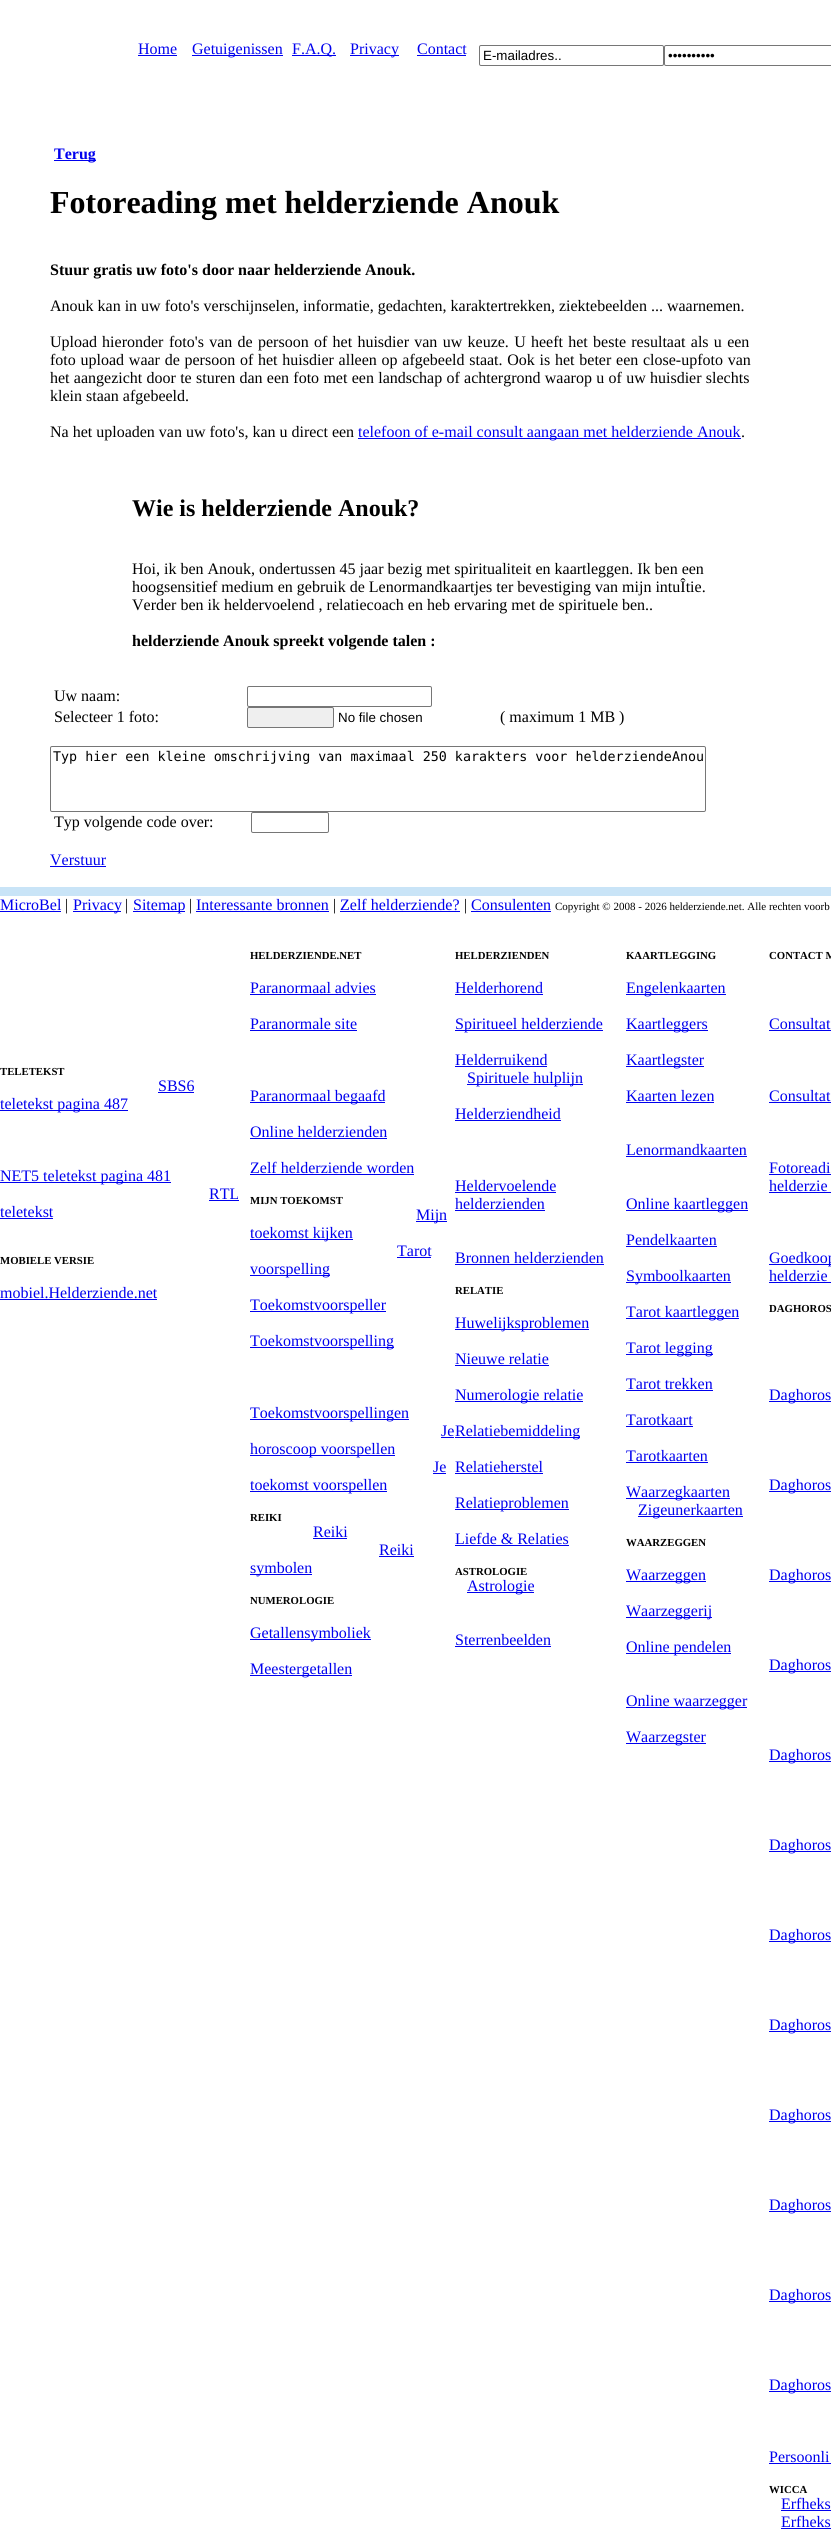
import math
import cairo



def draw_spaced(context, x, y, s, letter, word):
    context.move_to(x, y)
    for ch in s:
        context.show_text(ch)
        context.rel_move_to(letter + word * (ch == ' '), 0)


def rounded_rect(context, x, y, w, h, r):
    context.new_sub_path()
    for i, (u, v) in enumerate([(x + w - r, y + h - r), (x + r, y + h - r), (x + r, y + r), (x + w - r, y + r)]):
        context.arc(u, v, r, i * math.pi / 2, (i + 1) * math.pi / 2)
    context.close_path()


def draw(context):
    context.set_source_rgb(1, 1, 1)
    context.paint()
    context.set_source_rgb(0, 0, 238 / 255)
    context.rectangle(138, 55, 39, 1)
    context.fill()
    context.rectangle(192, 55, 91, 1)
    context.fill()
    context.rectangle(292, 55, 44, 1)
    context.fill()
    context.rectangle(350, 55, 49, 1)
    context.fill()
    context.rectangle(417, 55, 49, 1)
    context.fill()
    rounded_rect(context, 479.5, 45.5, 184, 20, 1.5)
    context.set_source_rgb(118 / 255, 118 / 255, 118 / 255)
    context.set_line_width(1)
    context.stroke()
    rounded_rect(context, 664.5, 45.5, 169, 20, 1.5)
    context.stroke()
    context.set_source_rgb(0, 0, 238 / 255)
    context.rectangle(54, 160, 42, 1)
    context.fill()
    context.rectangle(358, 438, 383, 1)
    context.fill()
    rounded_rect(context, 247.5, 686.5, 184, 20, 1.5)
    context.set_source_rgb(118 / 255, 118 / 255, 118 / 255)
    context.stroke()
    context.set_source_rgb(239 / 255, 239 / 255, 239 / 255)
    rounded_rect(context, 247.5, 707.5, 86, 20, 1.5)
    context.fill_preserve()
    context.set_source_rgb(118 / 255, 118 / 255, 118 / 255)
    context.stroke()
    rounded_rect(context, 50.5, 746.5, 655, 65, 1.5)
    context.stroke()
    rounded_rect(context, 251.5, 812.5, 77, 20, 1.5)
    context.stroke()
    context.set_source_rgb(0, 0, 238 / 255)
    context.rectangle(50, 866, 56, 1)
    context.fill()
    context.set_source_rgb(201 / 255, 228 / 255, 247 / 255)
    context.rectangle(0, 887, 831, 9)
    context.fill()
    context.set_source_rgb(0, 0, 238 / 255)
    context.rectangle(0, 911, 61, 1)
    context.fill()
    context.rectangle(73, 911, 48, 1)
    context.fill()
    context.rectangle(133, 911, 52, 1)
    context.fill()
    context.rectangle(196, 911, 133, 1)
    context.fill()
    context.rectangle(340, 911, 120, 1)
    context.fill()
    context.rectangle(471, 911, 80, 1)
    context.fill()
    context.rectangle(158, 1092, 36, 1)
    context.fill()
    context.rectangle(0, 1110, 128, 1)
    context.fill()
    context.rectangle(0, 1182, 171, 1)
    context.fill()
    context.rectangle(209, 1200, 30, 1)
    context.fill()
    context.rectangle(0, 1218, 53, 1)
    context.fill()
    context.rectangle(0, 1299, 157, 1)
    context.fill()
    context.rectangle(250, 994, 126, 1)
    context.fill()
    context.rectangle(250, 1030, 107, 1)
    context.fill()
    context.rectangle(250, 1102, 135, 1)
    context.fill()
    context.rectangle(250, 1138, 137, 1)
    context.fill()
    context.rectangle(250, 1174, 164, 1)
    context.fill()
    context.rectangle(416, 1221, 31, 1)
    context.fill()
    context.rectangle(250, 1239, 103, 1)
    context.fill()
    context.rectangle(397, 1257, 34, 1)
    context.fill()
    context.rectangle(250, 1275, 80, 1)
    context.fill()
    context.rectangle(250, 1311, 136, 1)
    context.fill()
    context.rectangle(250, 1347, 144, 1)
    context.fill()
    context.rectangle(250, 1419, 159, 1)
    context.fill()
    context.rectangle(441, 1437, 13, 1)
    context.fill()
    context.rectangle(250, 1455, 145, 1)
    context.fill()
    context.rectangle(433, 1473, 13, 1)
    context.fill()
    context.rectangle(250, 1491, 137, 1)
    context.fill()
    context.rectangle(313, 1538, 34, 1)
    context.fill()
    context.rectangle(379, 1556, 35, 1)
    context.fill()
    context.rectangle(250, 1574, 62, 1)
    context.fill()
    context.rectangle(250, 1639, 121, 1)
    context.fill()
    context.rectangle(250, 1675, 102, 1)
    context.fill()
    context.rectangle(455, 994, 88, 1)
    context.fill()
    context.rectangle(455, 1030, 148, 1)
    context.fill()
    context.rectangle(455, 1066, 92, 1)
    context.fill()
    context.rectangle(467, 1084, 116, 1)
    context.fill()
    context.rectangle(455, 1120, 106, 1)
    context.fill()
    context.rectangle(455, 1192, 101, 1)
    context.fill()
    context.rectangle(455, 1210, 90, 1)
    context.fill()
    context.rectangle(455, 1264, 149, 1)
    context.fill()
    context.rectangle(455, 1329, 134, 1)
    context.fill()
    context.rectangle(455, 1365, 94, 1)
    context.fill()
    context.rectangle(455, 1401, 128, 1)
    context.fill()
    context.rectangle(455, 1437, 125, 1)
    context.fill()
    context.rectangle(455, 1473, 88, 1)
    context.fill()
    context.rectangle(455, 1509, 114, 1)
    context.fill()
    context.rectangle(455, 1545, 114, 1)
    context.fill()
    context.rectangle(467, 1592, 67, 1)
    context.fill()
    context.rectangle(455, 1646, 96, 1)
    context.fill()
    context.rectangle(626, 994, 100, 1)
    context.fill()
    context.rectangle(626, 1030, 82, 1)
    context.fill()
    context.rectangle(626, 1066, 78, 1)
    context.fill()
    context.rectangle(626, 1102, 88, 1)
    context.fill()
    context.rectangle(626, 1156, 121, 1)
    context.fill()
    context.rectangle(626, 1210, 122, 1)
    context.fill()
    context.rectangle(626, 1246, 91, 1)
    context.fill()
    context.rectangle(626, 1282, 105, 1)
    context.fill()
    context.rectangle(626, 1318, 113, 1)
    context.fill()
    context.rectangle(626, 1354, 87, 1)
    context.fill()
    context.rectangle(626, 1390, 87, 1)
    context.fill()
    context.rectangle(626, 1426, 67, 1)
    context.fill()
    context.rectangle(626, 1462, 82, 1)
    context.fill()
    context.rectangle(626, 1498, 104, 1)
    context.fill()
    context.rectangle(638, 1516, 105, 1)
    context.fill()
    context.rectangle(626, 1581, 80, 1)
    context.fill()
    context.rectangle(626, 1617, 86, 1)
    context.fill()
    context.rectangle(626, 1653, 105, 1)
    context.fill()
    context.rectangle(626, 1707, 121, 1)
    context.fill()
    context.rectangle(626, 1743, 80, 1)
    context.fill()
    context.rectangle(769, 1030, 62, 1)
    context.fill()
    context.rectangle(769, 1102, 62, 1)
    context.fill()
    context.rectangle(769, 1174, 62, 1)
    context.fill()
    context.rectangle(769, 1192, 62, 1)
    context.fill()
    context.rectangle(769, 1264, 62, 1)
    context.fill()
    context.rectangle(769, 1282, 62, 1)
    context.fill()
    context.rectangle(769, 1401, 62, 1)
    context.fill()
    context.rectangle(769, 1491, 62, 1)
    context.fill()
    context.rectangle(769, 1581, 62, 1)
    context.fill()
    context.rectangle(769, 1671, 62, 1)
    context.fill()
    context.rectangle(769, 1761, 62, 1)
    context.fill()
    context.rectangle(769, 1851, 62, 1)
    context.fill()
    context.rectangle(769, 1941, 62, 1)
    context.fill()
    context.rectangle(769, 2031, 62, 1)
    context.fill()
    context.rectangle(769, 2121, 62, 1)
    context.fill()
    context.rectangle(769, 2211, 62, 1)
    context.fill()
    context.rectangle(769, 2301, 62, 1)
    context.fill()
    context.rectangle(769, 2391, 62, 1)
    context.fill()
    context.rectangle(769, 2463, 62, 1)
    context.fill()
    context.rectangle(781, 2510, 50, 1)
    context.fill()
    context.rectangle(781, 2528, 50, 1)
    context.fill()
    context.select_font_face("Liberation Serif")
    context.set_font_size(16)
    context.move_to(138, 54)
    context.show_text("Home")
    context.move_to(192, 54)
    context.show_text("Getuigenissen")
    context.move_to(292, 54)
    context.show_text("F.A.Q.")
    context.move_to(350, 54)
    context.show_text("Privacy")
    context.move_to(417, 54)
    context.show_text("Contact")
    context.select_font_face("Liberation Sans")
    context.set_font_size(13.35)
    context.set_source_rgb(0, 0, 0)
    context.move_to(483, 60)
    context.show_text("E-mailadres..")
    context.move_to(668, 60)
    context.show_text("••••••••••")
    context.select_font_face("Liberation Serif", cairo.FontSlant.NORMAL, cairo.FontWeight.BOLD)
    context.set_font_size(16)
    context.set_source_rgb(0, 0, 238 / 255)
    context.move_to(54, 159)
    context.show_text("Terug")
    context.set_font_size(32)
    context.set_source_rgb(0, 0, 0)
    context.move_to(50, 213)
    context.show_text("Fotoreading met helderziende Anouk")
    context.set_font_size(16)
    context.move_to(50, 275)
    context.show_text("Stuur gratis uw foto's door naar helderziende Anouk.")
    context.select_font_face("Liberation Serif")
    context.move_to(50, 311)
    context.show_text("Anouk kan in uw foto's verschijnselen, informatie, gedachten, karaktertrekken, ziektebeelden ... waarnemen.")
    draw_spaced(context, 50, 347, "Upload hieronder", 0, 1)
    draw_spaced(context, 169, 347, "foto's van de persoon of het huisdier van uw keuze. U heeft het beste resultaat als u een", 0, 1.3)
    draw_spaced(context, 50, 365, "foto upload waar de persoon of het huisdier alleen op afgebeeld staat. Ook is het beter een close-upfoto van", 0, 0.75)
    draw_spaced(context, 50, 383, "het aangezicht door te sturen dan een foto met een landschap of achtergrond waarop u of uw huisdier slechts", 0, 0.3)
    context.move_to(50, 401)
    context.show_text("klein staan afgebeeld.")
    context.move_to(50, 437)
    context.show_text("Na het uploaden van uw foto's, kan u direct een")
    context.set_source_rgb(0, 0, 238 / 255)
    context.move_to(358, 437)
    context.show_text("telefoon of e-mail consult aangaan met helderziende Anouk")
    context.set_source_rgb(0, 0, 0)
    context.move_to(741, 437)
    context.show_text(".")
    context.select_font_face("Liberation Serif", cairo.FontSlant.NORMAL, cairo.FontWeight.BOLD)
    context.set_font_size(24)
    context.move_to(132, 516)
    context.show_text("Wie is helderziende Anouk?")
    context.select_font_face("Liberation Serif")
    context.set_font_size(16)
    context.move_to(132, 574)
    context.show_text("Hoi, ik ben Anouk, ondertussen 45 jaar bezig met spiritualiteit en kaartleggen. Ik ben een")
    context.move_to(132, 592)
    context.show_text("hoogsensitief medium en gebruik de Lenormandkaartjes ter bevestiging van mijn intuÎtie.")
    context.move_to(132, 610)
    context.show_text("Verder ben ik heldervoelend , relatiecoach en heb ervaring met de spirituele ben..")
    context.select_font_face("Liberation Serif", cairo.FontSlant.NORMAL, cairo.FontWeight.BOLD)
    context.move_to(132, 646)
    context.show_text("helderziende Anouk spreekt volgende talen :")
    context.select_font_face("Liberation Serif")
    context.move_to(54, 701)
    context.show_text("Uw naam:")
    context.move_to(54, 722)
    context.show_text("Selecteer 1 foto:")
    context.select_font_face("Liberation Sans")
    context.set_font_size(13.35)
    context.move_to(338, 722)
    context.show_text("No file chosen")
    context.select_font_face("Liberation Serif")
    context.set_font_size(16)
    context.move_to(500, 722)
    context.show_text("( maximum 1 MB )")
    context.select_font_face("DejaVu Sans Mono")
    context.set_font_size(13.35)
    context.move_to(53, 761)
    context.show_text("Typ hier een kleine omschrijving van maximaal 250 karakters voor helderziendeAnou")
    context.select_font_face("Liberation Serif")
    context.set_font_size(16)
    context.move_to(54, 827)
    context.show_text("Typ volgende code over:")
    context.set_source_rgb(0, 0, 238 / 255)
    context.move_to(50, 865)
    context.show_text("Verstuur")
    context.move_to(0, 910)
    context.show_text("MicroBel")
    context.set_source_rgb(0, 0, 0)
    context.move_to(65, 910)
    context.show_text("|")
    context.set_source_rgb(0, 0, 238 / 255)
    context.move_to(73, 910)
    context.show_text("Privacy")
    context.set_source_rgb(0, 0, 0)
    context.move_to(125, 910)
    context.show_text("|")
    context.set_source_rgb(0, 0, 238 / 255)
    context.move_to(133, 910)
    context.show_text("Sitemap")
    context.set_source_rgb(0, 0, 0)
    context.move_to(189, 910)
    context.show_text("|")
    context.set_source_rgb(0, 0, 238 / 255)
    context.move_to(196, 910)
    context.show_text("Interessante bronnen")
    context.set_source_rgb(0, 0, 0)
    context.move_to(333, 910)
    context.show_text("|")
    context.set_source_rgb(0, 0, 238 / 255)
    context.move_to(340, 910)
    context.show_text("Zelf helderziende?")
    context.set_source_rgb(0, 0, 0)
    context.move_to(464, 910)
    context.show_text("|")
    context.set_source_rgb(0, 0, 238 / 255)
    context.move_to(471, 910)
    context.show_text("Consulenten")
    context.set_font_size(11)
    context.set_source_rgb(0, 0, 0)
    context.move_to(555, 910)
    context.show_text("Copyright © 2008 - 2026 helderziende.net. Alle rechten voorb")
    context.select_font_face("Liberation Serif", cairo.FontSlant.NORMAL, cairo.FontWeight.BOLD)
    context.set_font_size(10.75)
    context.move_to(0, 1075)
    context.show_text("TELETEKST")
    context.select_font_face("Liberation Serif")
    context.set_font_size(16)
    context.set_source_rgb(0, 0, 238 / 255)
    context.move_to(158, 1091)
    context.show_text("SBS6")
    context.move_to(0, 1109)
    context.show_text("teletekst pagina 487")
    context.move_to(0, 1181)
    context.show_text("NET5 teletekst pagina 481")
    context.move_to(209, 1199)
    context.show_text("RTL")
    context.move_to(0, 1217)
    context.show_text("teletekst")
    context.select_font_face("Liberation Serif", cairo.FontSlant.NORMAL, cairo.FontWeight.BOLD)
    context.set_font_size(10.75)
    context.set_source_rgb(0, 0, 0)
    context.move_to(0, 1264)
    context.show_text("MOBIELE VERSIE")
    context.select_font_face("Liberation Serif")
    context.set_font_size(16)
    context.set_source_rgb(0, 0, 238 / 255)
    context.move_to(0, 1298)
    context.show_text("mobiel.Helderziende.net")
    context.select_font_face("Liberation Serif", cairo.FontSlant.NORMAL, cairo.FontWeight.BOLD)
    context.set_font_size(10.75)
    context.set_source_rgb(0, 0, 0)
    context.move_to(250, 959)
    context.show_text("HELDERZIENDE.NET")
    context.select_font_face("Liberation Serif")
    context.set_font_size(16)
    context.set_source_rgb(0, 0, 238 / 255)
    context.move_to(250, 993)
    context.show_text("Paranormaal advies")
    context.move_to(250, 1029)
    context.show_text("Paranormale site")
    context.move_to(250, 1101)
    context.show_text("Paranormaal begaafd")
    context.move_to(250, 1137)
    context.show_text("Online helderzienden")
    context.move_to(250, 1173)
    context.show_text("Zelf helderziende worden")
    context.select_font_face("Liberation Serif", cairo.FontSlant.NORMAL, cairo.FontWeight.BOLD)
    context.set_font_size(10.75)
    context.set_source_rgb(0, 0, 0)
    context.move_to(250, 1204)
    context.show_text("MIJN TOEKOMST")
    context.select_font_face("Liberation Serif")
    context.set_font_size(16)
    context.set_source_rgb(0, 0, 238 / 255)
    context.move_to(416, 1220)
    context.show_text("Mijn")
    context.move_to(250, 1238)
    context.show_text("toekomst kijken")
    context.move_to(397, 1256)
    context.show_text("Tarot")
    context.move_to(250, 1274)
    context.show_text("voorspelling")
    context.move_to(250, 1310)
    context.show_text("Toekomstvoorspeller")
    context.move_to(250, 1346)
    context.show_text("Toekomstvoorspelling")
    context.move_to(250, 1418)
    context.show_text("Toekomstvoorspellingen")
    context.move_to(441, 1436)
    context.show_text("Je")
    context.move_to(250, 1454)
    context.show_text("horoscoop voorspellen")
    context.move_to(433, 1472)
    context.show_text("Je")
    context.move_to(250, 1490)
    context.show_text("toekomst voorspellen")
    context.select_font_face("Liberation Serif", cairo.FontSlant.NORMAL, cairo.FontWeight.BOLD)
    context.set_font_size(10.75)
    context.set_source_rgb(0, 0, 0)
    context.move_to(250, 1521)
    context.show_text("REIKI")
    context.select_font_face("Liberation Serif")
    context.set_font_size(16)
    context.set_source_rgb(0, 0, 238 / 255)
    context.move_to(313, 1537)
    context.show_text("Reiki")
    context.move_to(379, 1555)
    context.show_text("Reiki")
    context.move_to(250, 1573)
    context.show_text("symbolen")
    context.select_font_face("Liberation Serif", cairo.FontSlant.NORMAL, cairo.FontWeight.BOLD)
    context.set_font_size(10.75)
    context.set_source_rgb(0, 0, 0)
    context.move_to(250, 1604)
    context.show_text("NUMEROLOGIE")
    context.select_font_face("Liberation Serif")
    context.set_font_size(16)
    context.set_source_rgb(0, 0, 238 / 255)
    context.move_to(250, 1638)
    context.show_text("Getallensymboliek")
    context.move_to(250, 1674)
    context.show_text("Meestergetallen")
    context.select_font_face("Liberation Serif", cairo.FontSlant.NORMAL, cairo.FontWeight.BOLD)
    context.set_font_size(10.75)
    context.set_source_rgb(0, 0, 0)
    context.move_to(455, 959)
    context.show_text("HELDERZIENDEN")
    context.select_font_face("Liberation Serif")
    context.set_font_size(16)
    context.set_source_rgb(0, 0, 238 / 255)
    context.move_to(455, 993)
    context.show_text("Helderhorend")
    context.move_to(455, 1029)
    context.show_text("Spiritueel helderziende")
    context.move_to(455, 1065)
    context.show_text("Helderruikend")
    context.move_to(467, 1083)
    context.show_text("Spirituele hulplijn")
    context.move_to(455, 1119)
    context.show_text("Helderziendheid")
    context.move_to(455, 1191)
    context.show_text("Heldervoelende")
    context.move_to(455, 1209)
    context.show_text("helderzienden")
    context.move_to(455, 1263)
    context.show_text("Bronnen helderzienden")
    context.select_font_face("Liberation Serif", cairo.FontSlant.NORMAL, cairo.FontWeight.BOLD)
    context.set_font_size(10.75)
    context.set_source_rgb(0, 0, 0)
    context.move_to(455, 1294)
    context.show_text("RELATIE")
    context.select_font_face("Liberation Serif")
    context.set_font_size(16)
    context.set_source_rgb(0, 0, 238 / 255)
    context.move_to(455, 1328)
    context.show_text("Huwelijksproblemen")
    context.move_to(455, 1364)
    context.show_text("Nieuwe relatie")
    context.move_to(455, 1400)
    context.show_text("Numerologie relatie")
    context.move_to(455, 1436)
    context.show_text("Relatiebemiddeling")
    context.move_to(455, 1472)
    context.show_text("Relatieherstel")
    context.move_to(455, 1508)
    context.show_text("Relatieproblemen")
    context.move_to(455, 1544)
    context.show_text("Liefde & Relaties")
    context.select_font_face("Liberation Serif", cairo.FontSlant.NORMAL, cairo.FontWeight.BOLD)
    context.set_font_size(10.75)
    context.set_source_rgb(0, 0, 0)
    context.move_to(455, 1575)
    context.show_text("ASTROLOGIE")
    context.select_font_face("Liberation Serif")
    context.set_font_size(16)
    context.set_source_rgb(0, 0, 238 / 255)
    context.move_to(467, 1591)
    context.show_text("Astrologie")
    context.move_to(455, 1645)
    context.show_text("Sterrenbeelden")
    context.select_font_face("Liberation Serif", cairo.FontSlant.NORMAL, cairo.FontWeight.BOLD)
    context.set_font_size(10.75)
    context.set_source_rgb(0, 0, 0)
    context.move_to(626, 959)
    context.show_text("KAARTLEGGING")
    context.select_font_face("Liberation Serif")
    context.set_font_size(16)
    context.set_source_rgb(0, 0, 238 / 255)
    context.move_to(626, 993)
    context.show_text("Engelenkaarten")
    context.move_to(626, 1029)
    context.show_text("Kaartleggers")
    context.move_to(626, 1065)
    context.show_text("Kaartlegster")
    context.move_to(626, 1101)
    context.show_text("Kaarten lezen")
    context.move_to(626, 1155)
    context.show_text("Lenormandkaarten")
    context.move_to(626, 1209)
    context.show_text("Online kaartleggen")
    context.move_to(626, 1245)
    context.show_text("Pendelkaarten")
    context.move_to(626, 1281)
    context.show_text("Symboolkaarten")
    context.move_to(626, 1317)
    context.show_text("Tarot kaartleggen")
    context.move_to(626, 1353)
    context.show_text("Tarot legging")
    context.move_to(626, 1389)
    context.show_text("Tarot trekken")
    context.move_to(626, 1425)
    context.show_text("Tarotkaart")
    context.move_to(626, 1461)
    context.show_text("Tarotkaarten")
    context.move_to(626, 1497)
    context.show_text("Waarzegkaarten")
    context.move_to(638, 1515)
    context.show_text("Zigeunerkaarten")
    context.select_font_face("Liberation Serif", cairo.FontSlant.NORMAL, cairo.FontWeight.BOLD)
    context.set_font_size(10.75)
    context.set_source_rgb(0, 0, 0)
    context.move_to(626, 1546)
    context.show_text("WAARZEGGEN")
    context.select_font_face("Liberation Serif")
    context.set_font_size(16)
    context.set_source_rgb(0, 0, 238 / 255)
    context.move_to(626, 1580)
    context.show_text("Waarzeggen")
    context.move_to(626, 1616)
    context.show_text("Waarzeggerij")
    context.move_to(626, 1652)
    context.show_text("Online pendelen")
    context.move_to(626, 1706)
    context.show_text("Online waarzegger")
    context.move_to(626, 1742)
    context.show_text("Waarzegster")
    context.select_font_face("Liberation Serif", cairo.FontSlant.NORMAL, cairo.FontWeight.BOLD)
    context.set_font_size(10.75)
    context.set_source_rgb(0, 0, 0)
    context.move_to(769, 959)
    context.show_text("CONTACT M")
    context.select_font_face("Liberation Serif")
    context.set_font_size(16)
    context.set_source_rgb(0, 0, 238 / 255)
    context.move_to(769, 1029)
    context.show_text("Consultat")
    context.move_to(769, 1101)
    context.show_text("Consultat")
    context.move_to(769, 1173)
    context.show_text("Fotoreadi")
    context.move_to(769, 1191)
    context.show_text("helderzie")
    context.move_to(769, 1263)
    context.show_text("Goedkoop")
    context.move_to(769, 1281)
    context.show_text("helderzie")
    context.select_font_face("Liberation Serif", cairo.FontSlant.NORMAL, cairo.FontWeight.BOLD)
    context.set_font_size(10.75)
    context.set_source_rgb(0, 0, 0)
    context.move_to(769, 1312)
    context.show_text("DAGHOROS")
    context.select_font_face("Liberation Serif")
    context.set_font_size(16)
    context.set_source_rgb(0, 0, 238 / 255)
    context.move_to(769, 1400)
    context.show_text("Daghoros")
    context.move_to(769, 1490)
    context.show_text("Daghoros")
    context.move_to(769, 1580)
    context.show_text("Daghoros")
    context.move_to(769, 1670)
    context.show_text("Daghoros")
    context.move_to(769, 1760)
    context.show_text("Daghoros")
    context.move_to(769, 1850)
    context.show_text("Daghoros")
    context.move_to(769, 1940)
    context.show_text("Daghoros")
    context.move_to(769, 2030)
    context.show_text("Daghoros")
    context.move_to(769, 2120)
    context.show_text("Daghoros")
    context.move_to(769, 2210)
    context.show_text("Daghoros")
    context.move_to(769, 2300)
    context.show_text("Daghoros")
    context.move_to(769, 2390)
    context.show_text("Daghoros")
    context.move_to(769, 2462)
    context.show_text("Persoonli")
    context.select_font_face("Liberation Serif", cairo.FontSlant.NORMAL, cairo.FontWeight.BOLD)
    context.set_font_size(10.75)
    context.set_source_rgb(0, 0, 0)
    context.move_to(769, 2493)
    context.show_text("WICCA")
    context.select_font_face("Liberation Serif")
    context.set_font_size(16)
    context.set_source_rgb(0, 0, 238 / 255)
    context.move_to(781, 2509)
    context.show_text("Erfheks")
    context.move_to(781, 2527)
    context.show_text("Erfheks")


surface = cairo.ImageSurface(cairo.Format.RGB24, 831, 2542)
context = cairo.Context(surface)
options = cairo.FontOptions()
options.set_hint_metrics(cairo.HintMetrics.OFF)
options.set_hint_style(cairo.HintStyle.NONE)
context.set_font_options(options)
context.set_miter_limit(4)
draw(context)
surface.write_to_png("out.png")
